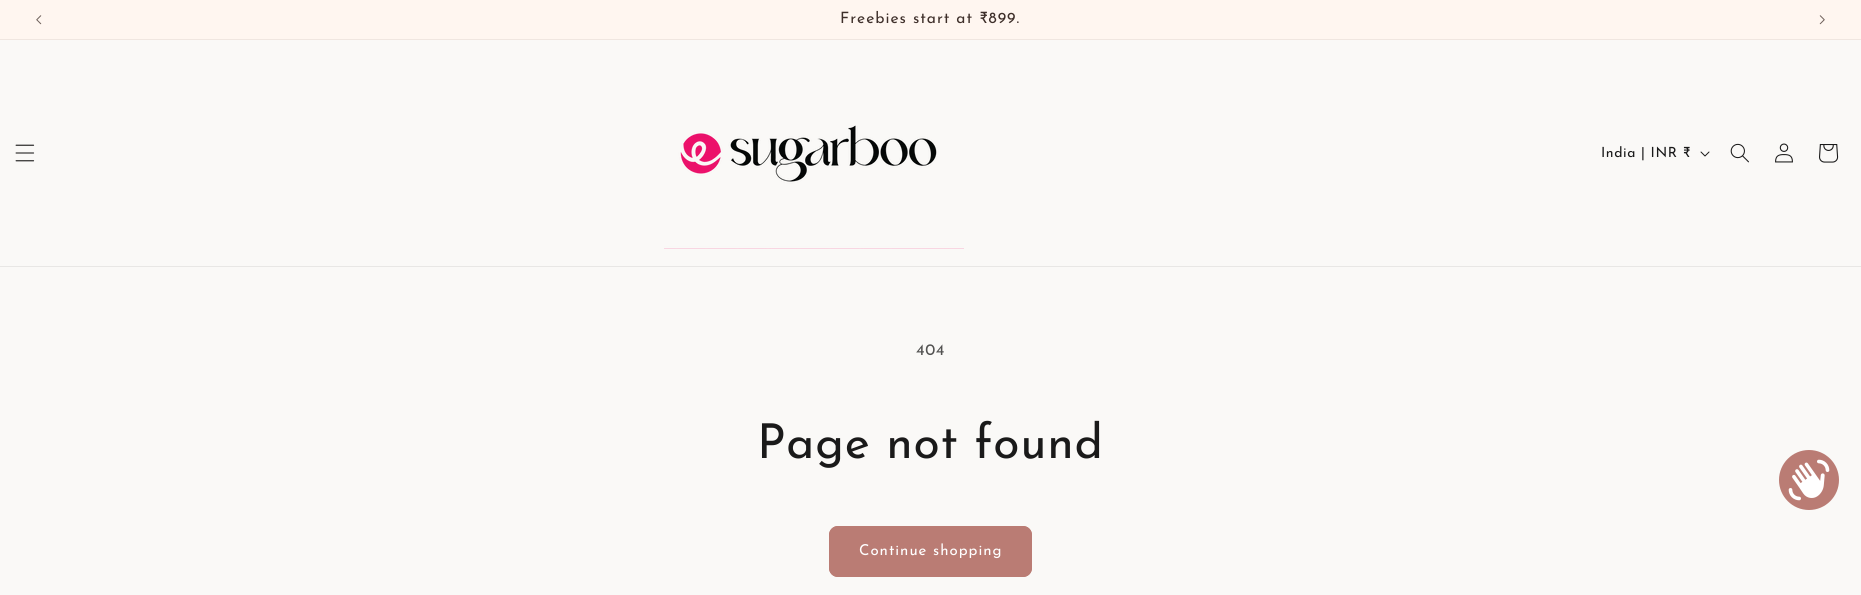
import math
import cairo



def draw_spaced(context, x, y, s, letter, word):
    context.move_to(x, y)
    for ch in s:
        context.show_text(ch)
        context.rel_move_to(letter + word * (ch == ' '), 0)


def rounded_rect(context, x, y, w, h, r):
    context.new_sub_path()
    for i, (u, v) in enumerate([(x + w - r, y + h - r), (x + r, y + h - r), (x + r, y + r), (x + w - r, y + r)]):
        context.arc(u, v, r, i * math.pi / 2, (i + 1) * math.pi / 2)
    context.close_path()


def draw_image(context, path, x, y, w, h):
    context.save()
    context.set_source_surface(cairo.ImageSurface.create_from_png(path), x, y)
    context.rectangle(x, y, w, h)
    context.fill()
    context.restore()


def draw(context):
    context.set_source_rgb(250 / 255, 249 / 255, 247 / 255)
    context.paint()
    context.set_source_rgb(1, 246 / 255, 240 / 255)
    context.rectangle(0, 0, 1861, 39)
    context.fill()
    context.set_source_rgb(240 / 255, 230 / 255, 224 / 255)
    context.rectangle(0, 39, 1861, 1)
    context.fill()
    draw_image(context, "images/1.png", 36, 15, 6, 10)
    draw_image(context, "images/2.png", 1819, 15, 6, 10)
    context.set_source_rgb(232 / 255, 231 / 255, 229 / 255)
    context.rectangle(0, 266, 1861, 1)
    context.fill()
    draw_image(context, "images/3.png", 15, 144, 20, 18)
    draw_image(context, "images/4.png", 664, 125, 300, 124)
    draw_image(context, "images/5.png", 1700, 151, 10, 6)
    draw_image(context, "images/6.png", 1730, 143, 19, 20)
    draw_image(context, "images/7.png", 1775, 143, 18, 20)
    draw_image(context, "images/8.png", 1819, 144, 20, 19)
    context.set_source_rgb(186 / 255, 124 / 255, 116 / 255)
    rounded_rect(context, 829, 526, 203, 51, 9)
    context.fill()
    rounded_rect(context, 830.5, 527.5, 200, 48, 7.5)
    context.set_line_width(3)
    context.stroke()
    context.arc(1809, 480, 30, 0, 2 * math.pi)
    context.fill()
    draw_image(context, "images/9.png", 1788, 459, 42, 42)
    context.select_font_face("Josefin Sans")
    context.set_font_size(15.6)
    context.set_source_rgb(62 / 255, 47 / 255, 42 / 255)
    draw_spaced(context, 840, 23, "Freebies start at ₹899.", 1, 0)
    context.set_font_size(14)
    context.set_source_rgb(26 / 255, 26 / 255, 26 / 255)
    draw_spaced(context, 1601, 157, "India | INR ₹", 0.6, 0)
    context.set_font_size(16)
    context.set_source_rgb(82 / 255, 82 / 255, 81 / 255)
    draw_spaced(context, 916, 355, "404", 0.6, 0)
    context.set_font_size(48)
    context.set_source_rgb(26 / 255, 26 / 255, 26 / 255)
    draw_spaced(context, 757, 458, "Page not found", 0.75, 0)
    context.set_font_size(15)
    context.set_source_rgb(1, 1, 1)
    draw_spaced(context, 859, 555, "Continue shopping", 1, 0)


surface = cairo.ImageSurface(cairo.Format.RGB24, 1861, 595)
context = cairo.Context(surface)
options = cairo.FontOptions()
options.set_hint_metrics(cairo.HintMetrics.OFF)
options.set_hint_style(cairo.HintStyle.NONE)
context.set_font_options(options)
context.set_miter_limit(4)
draw(context)
surface.write_to_png("out.png")
